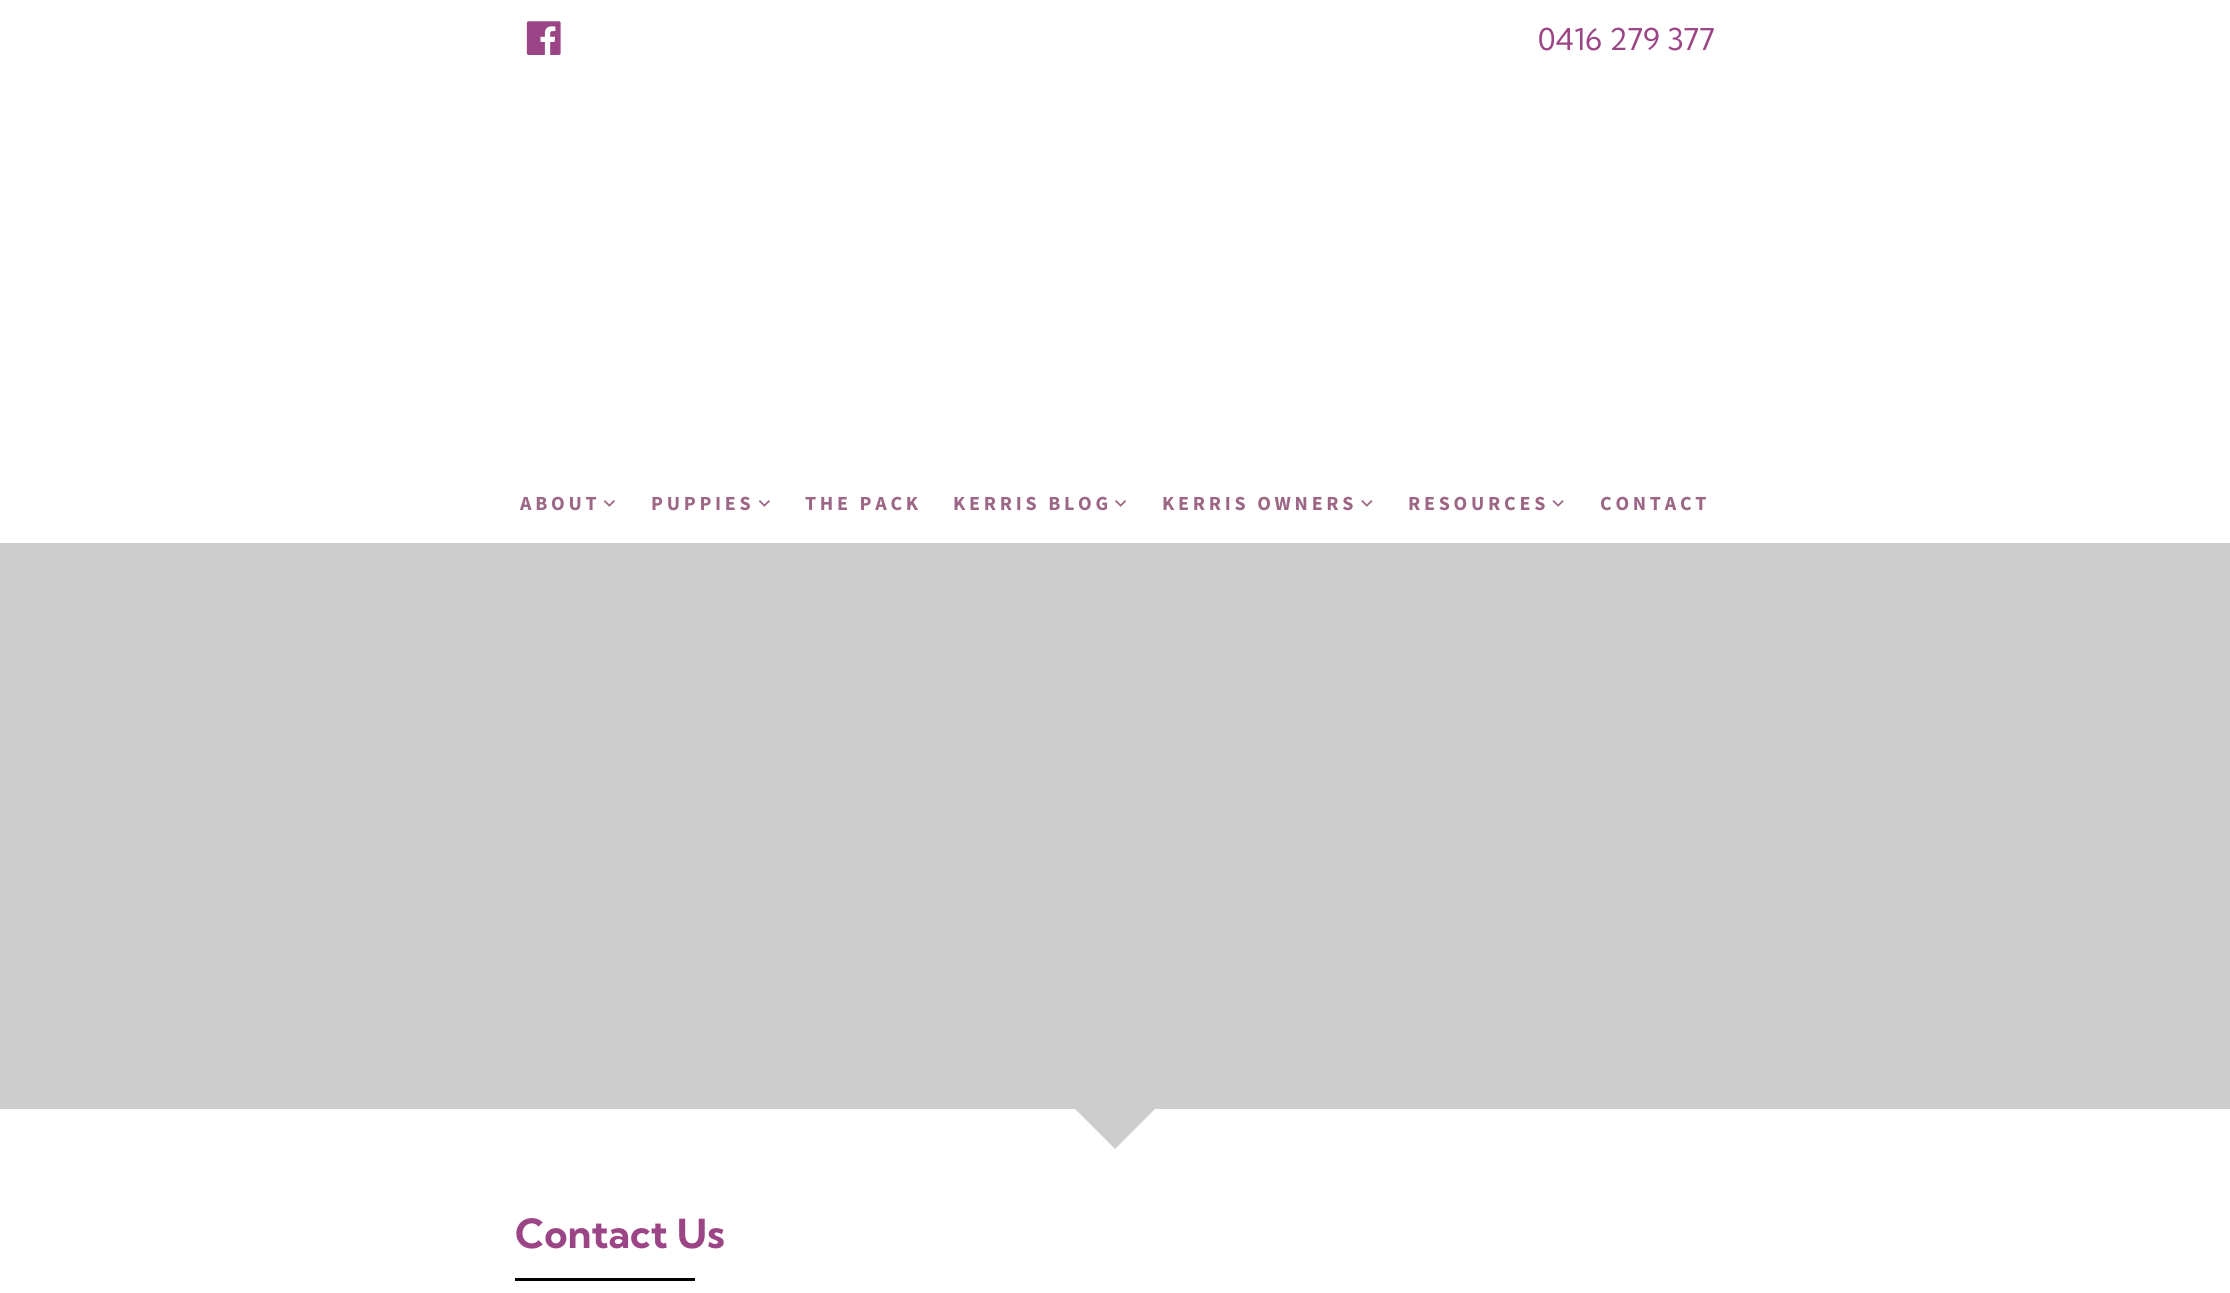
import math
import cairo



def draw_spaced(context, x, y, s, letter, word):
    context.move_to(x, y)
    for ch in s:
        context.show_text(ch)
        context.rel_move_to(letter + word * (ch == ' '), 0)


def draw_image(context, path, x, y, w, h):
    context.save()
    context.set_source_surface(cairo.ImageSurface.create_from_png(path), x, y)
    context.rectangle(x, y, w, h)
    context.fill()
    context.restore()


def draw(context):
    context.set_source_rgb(1, 1, 1)
    context.paint()
    draw_image(context, "images/1.png", 526, 21, 35, 34)
    draw_image(context, "images/2.png", 603, 500, 12, 7)
    draw_image(context, "images/2.png", 758, 500, 12, 7)
    draw_image(context, "images/3.png", 1115, 500, 12, 7)
    draw_image(context, "images/4.png", 1361, 500, 12, 7)
    draw_image(context, "images/5.png", 1552, 500, 12, 7)
    context.set_source_rgb(205 / 255, 205 / 255, 205 / 255)
    context.new_path()
    context.move_to(0, 543)
    context.line_to(0, 1109)
    context.line_to(1075, 1109)
    context.line_to(1115, 1149)
    context.line_to(1155, 1109)
    context.line_to(2230, 1109)
    context.line_to(2230, 543)
    context.close_path()
    context.fill()
    context.set_source_rgb(0, 0, 0)
    context.rectangle(515, 1278, 180, 3)
    context.fill()
    context.select_font_face("Kumbh Sans")
    context.set_font_size(30)
    context.set_source_rgb(156 / 255, 69 / 255, 134 / 255)
    context.move_to(1538, 50)
    context.show_text("0416 279 377")
    context.select_font_face("Source Sans Pro", cairo.FontSlant.NORMAL, cairo.FontWeight.BOLD)
    context.set_font_size(20)
    context.set_source_rgb(156 / 255, 102 / 255, 134 / 255)
    draw_spaced(context, 520, 510, "ABOUT", 3.75, 0)
    draw_spaced(context, 651, 510, "PUPPIES", 3.75, 0)
    draw_spaced(context, 805, 510, "THE PACK", 3.75, 0)
    draw_spaced(context, 953, 510, "KERRIS BLOG", 3.75, 0)
    draw_spaced(context, 1162, 510, "KERRIS OWNERS", 3.75, 0)
    draw_spaced(context, 1408, 510, "RESOURCES", 3.75, 0)
    draw_spaced(context, 1600, 510, "CONTACT", 3.75, 0)
    context.select_font_face("Kumbh Sans", cairo.FontSlant.NORMAL, cairo.FontWeight.BOLD)
    context.set_font_size(40)
    context.set_source_rgb(156 / 255, 69 / 255, 134 / 255)
    context.move_to(515, 1248)
    context.show_text("Contact Us")


surface = cairo.ImageSurface(cairo.Format.RGB24, 2230, 1293)
context = cairo.Context(surface)
options = cairo.FontOptions()
options.set_hint_metrics(cairo.HintMetrics.OFF)
options.set_hint_style(cairo.HintStyle.NONE)
context.set_font_options(options)
context.set_miter_limit(4)
draw(context)
surface.write_to_png("out.png")
